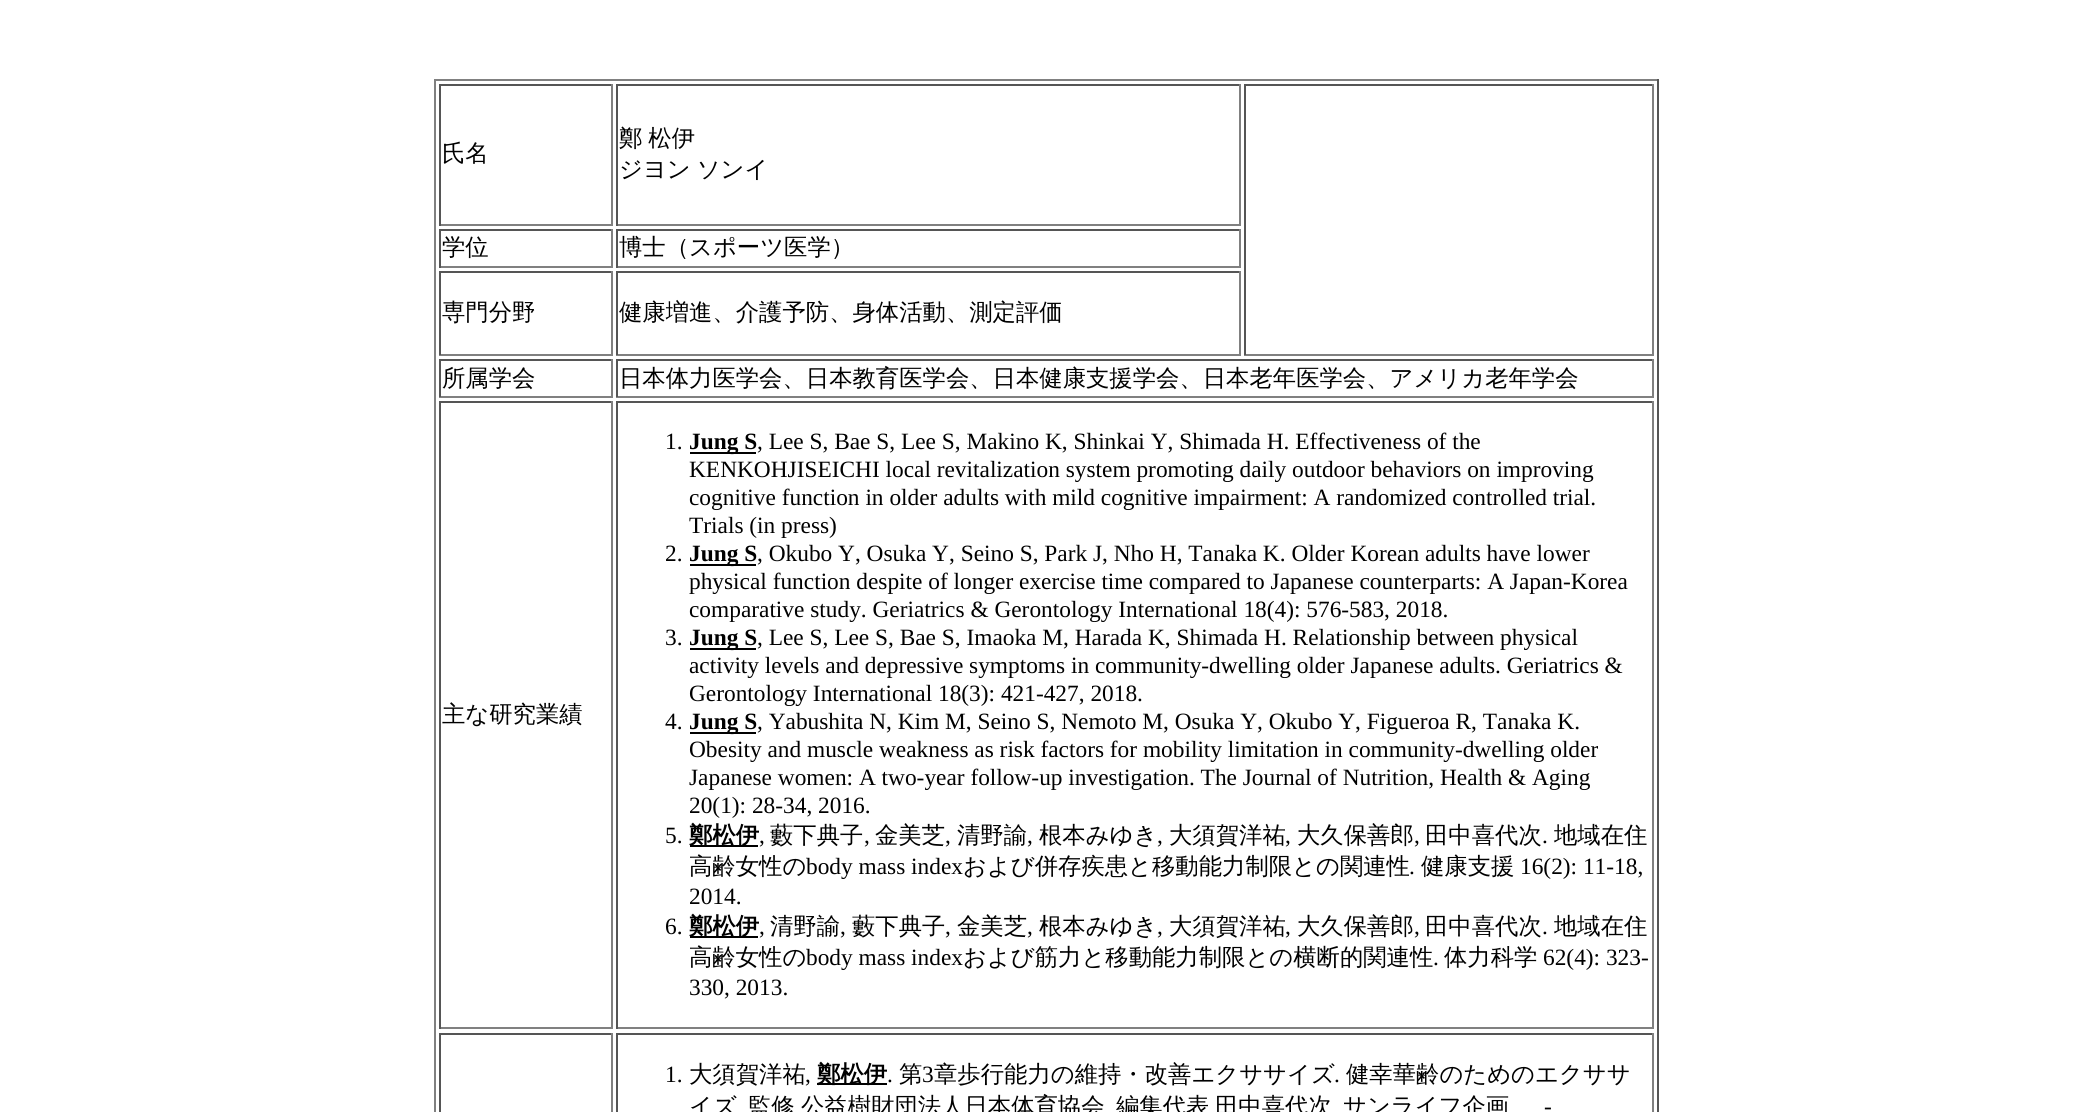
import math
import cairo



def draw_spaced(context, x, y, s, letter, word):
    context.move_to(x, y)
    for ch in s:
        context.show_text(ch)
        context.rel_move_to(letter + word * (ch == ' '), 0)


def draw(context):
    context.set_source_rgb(1, 1, 1)
    context.paint()
    context.set_source_rgb(128 / 255, 128 / 255, 128 / 255)
    context.rectangle(434, 79, 1225, 2)
    context.fill()
    context.set_source_rgb(85 / 255, 85 / 255, 85 / 255)
    context.rectangle(1657, 79, 2, 1033)
    context.fill()
    context.set_source_rgb(128 / 255, 128 / 255, 128 / 255)
    context.rectangle(434, 79, 2, 1033)
    context.fill()
    context.set_source_rgb(85 / 255, 85 / 255, 85 / 255)
    context.rectangle(439, 84, 174, 2)
    context.fill()
    context.set_source_rgb(128 / 255, 128 / 255, 128 / 255)
    context.rectangle(611, 84, 2, 142)
    context.fill()
    context.rectangle(439, 224, 174, 2)
    context.fill()
    context.set_source_rgb(85 / 255, 85 / 255, 85 / 255)
    context.rectangle(439, 84, 2, 142)
    context.fill()
    context.rectangle(616, 84, 625, 2)
    context.fill()
    context.set_source_rgb(128 / 255, 128 / 255, 128 / 255)
    context.rectangle(1239, 84, 2, 142)
    context.fill()
    context.rectangle(616, 224, 625, 2)
    context.fill()
    context.set_source_rgb(85 / 255, 85 / 255, 85 / 255)
    context.rectangle(616, 84, 2, 142)
    context.fill()
    context.rectangle(1244, 84, 410, 2)
    context.fill()
    context.set_source_rgb(128 / 255, 128 / 255, 128 / 255)
    context.rectangle(1652, 84, 2, 271)
    context.fill()
    context.rectangle(1244, 354, 410, 2)
    context.fill()
    context.set_source_rgb(85 / 255, 85 / 255, 85 / 255)
    context.rectangle(1244, 84, 2, 271)
    context.fill()
    context.rectangle(439, 229, 174, 2)
    context.fill()
    context.set_source_rgb(128 / 255, 128 / 255, 128 / 255)
    context.rectangle(611, 229, 2, 39)
    context.fill()
    context.rectangle(439, 266, 174, 2)
    context.fill()
    context.set_source_rgb(85 / 255, 85 / 255, 85 / 255)
    context.rectangle(439, 229, 2, 39)
    context.fill()
    context.rectangle(616, 229, 625, 2)
    context.fill()
    context.set_source_rgb(128 / 255, 128 / 255, 128 / 255)
    context.rectangle(1239, 229, 2, 39)
    context.fill()
    context.rectangle(616, 266, 625, 2)
    context.fill()
    context.set_source_rgb(85 / 255, 85 / 255, 85 / 255)
    context.rectangle(616, 229, 2, 39)
    context.fill()
    context.rectangle(439, 271, 174, 2)
    context.fill()
    context.set_source_rgb(128 / 255, 128 / 255, 128 / 255)
    context.rectangle(611, 271, 2, 84)
    context.fill()
    context.rectangle(439, 354, 174, 2)
    context.fill()
    context.set_source_rgb(85 / 255, 85 / 255, 85 / 255)
    context.rectangle(439, 271, 2, 84)
    context.fill()
    context.rectangle(616, 271, 625, 2)
    context.fill()
    context.set_source_rgb(128 / 255, 128 / 255, 128 / 255)
    context.rectangle(1239, 271, 2, 84)
    context.fill()
    context.rectangle(616, 354, 625, 2)
    context.fill()
    context.set_source_rgb(85 / 255, 85 / 255, 85 / 255)
    context.rectangle(616, 271, 2, 84)
    context.fill()
    context.rectangle(439, 359, 174, 2)
    context.fill()
    context.set_source_rgb(128 / 255, 128 / 255, 128 / 255)
    context.rectangle(611, 359, 2, 38)
    context.fill()
    context.rectangle(439, 396, 174, 2)
    context.fill()
    context.set_source_rgb(85 / 255, 85 / 255, 85 / 255)
    context.rectangle(439, 359, 2, 38)
    context.fill()
    context.rectangle(616, 359, 1038, 2)
    context.fill()
    context.set_source_rgb(128 / 255, 128 / 255, 128 / 255)
    context.rectangle(1652, 359, 2, 38)
    context.fill()
    context.rectangle(616, 396, 1038, 2)
    context.fill()
    context.set_source_rgb(85 / 255, 85 / 255, 85 / 255)
    context.rectangle(616, 359, 2, 38)
    context.fill()
    context.rectangle(439, 401, 174, 2)
    context.fill()
    context.set_source_rgb(128 / 255, 128 / 255, 128 / 255)
    context.rectangle(611, 401, 2, 628)
    context.fill()
    context.rectangle(439, 1027, 174, 2)
    context.fill()
    context.set_source_rgb(85 / 255, 85 / 255, 85 / 255)
    context.rectangle(439, 401, 2, 628)
    context.fill()
    context.rectangle(616, 401, 1038, 2)
    context.fill()
    context.set_source_rgb(128 / 255, 128 / 255, 128 / 255)
    context.rectangle(1652, 401, 2, 628)
    context.fill()
    context.rectangle(616, 1027, 1038, 2)
    context.fill()
    context.set_source_rgb(85 / 255, 85 / 255, 85 / 255)
    context.rectangle(616, 401, 2, 628)
    context.fill()
    context.set_source_rgb(0, 0, 0)
    context.rectangle(690, 452, 66, 2)
    context.fill()
    context.rectangle(690, 564, 66, 2)
    context.fill()
    context.rectangle(690, 648, 66, 2)
    context.fill()
    context.rectangle(690, 732, 66, 2)
    context.fill()
    context.rectangle(690, 845, 68, 2)
    context.fill()
    context.rectangle(690, 936, 68, 2)
    context.fill()
    context.set_source_rgb(85 / 255, 85 / 255, 85 / 255)
    context.rectangle(439, 1033, 174, 2)
    context.fill()
    context.set_source_rgb(128 / 255, 128 / 255, 128 / 255)
    context.rectangle(611, 1033, 2, 79)
    context.fill()
    context.set_source_rgb(85 / 255, 85 / 255, 85 / 255)
    context.rectangle(439, 1033, 2, 79)
    context.fill()
    context.rectangle(616, 1033, 1038, 2)
    context.fill()
    context.set_source_rgb(128 / 255, 128 / 255, 128 / 255)
    context.rectangle(1652, 1033, 2, 79)
    context.fill()
    context.set_source_rgb(85 / 255, 85 / 255, 85 / 255)
    context.rectangle(616, 1033, 2, 79)
    context.fill()
    context.set_source_rgb(0, 0, 0)
    context.rectangle(817, 1083, 70, 2)
    context.fill()
    context.select_font_face("WenQuanYi Zen Hei Medium")
    context.set_font_size(23.35)
    context.move_to(442, 161)
    context.show_text("氏名")
    draw_spaced(context, 619, 146, "鄭 松伊", 0, -1)
    draw_spaced(context, 619, 177, "ジヨン ソンイ", 0, -1)
    context.move_to(442, 255)
    context.show_text("学位")
    context.move_to(619, 255)
    context.show_text("博士（スポーツ医学）")
    context.move_to(442, 320)
    context.show_text("専門分野")
    context.move_to(619, 320)
    context.show_text("健康増進、介護予防、身体活動、測定評価")
    context.move_to(442, 386)
    context.show_text("所属学会")
    context.move_to(619, 386)
    context.show_text("日本体力医学会、日本教育医学会、日本健康支援学会、日本老年医学会、アメリカ老年学会")
    context.move_to(442, 722)
    context.show_text("主な研究業績")
    context.select_font_face("Liberation Serif")
    context.move_to(665, 449)
    context.show_text("1.")
    context.select_font_face("Liberation Serif", cairo.FontSlant.NORMAL, cairo.FontWeight.BOLD)
    context.move_to(689, 449)
    context.show_text("Jung S")
    context.select_font_face("Liberation Serif")
    context.move_to(757, 449)
    context.show_text(", Lee S, Bae S, Lee S, Makino K, Shinkai Y, Shimada H. Effectiveness of the")
    context.move_to(689, 477)
    context.show_text("KENKOHJISEICHI local revitalization system promoting daily outdoor behaviors on improving")
    context.move_to(689, 505)
    context.show_text("cognitive function in older adults with mild cognitive impairment: A randomized controlled trial.")
    context.move_to(689, 533)
    context.show_text("Trials (in press)")
    context.move_to(665, 561)
    context.show_text("2.")
    context.select_font_face("Liberation Serif", cairo.FontSlant.NORMAL, cairo.FontWeight.BOLD)
    context.move_to(689, 561)
    context.show_text("Jung S")
    context.select_font_face("Liberation Serif")
    context.move_to(757, 561)
    context.show_text(", Okubo Y, Osuka Y, Seino S, Park J, Nho H, Tanaka K. Older Korean adults have lower")
    context.move_to(689, 589)
    context.show_text("physical function despite of longer exercise time compared to Japanese counterparts: A Japan-Korea")
    context.move_to(689, 617)
    context.show_text("comparative study. Geriatrics & Gerontology International 18(4): 576-583, 2018.")
    context.move_to(665, 645)
    context.show_text("3.")
    context.select_font_face("Liberation Serif", cairo.FontSlant.NORMAL, cairo.FontWeight.BOLD)
    context.move_to(689, 645)
    context.show_text("Jung S")
    context.select_font_face("Liberation Serif")
    context.move_to(757, 645)
    context.show_text(", Lee S, Lee S, Bae S, Imaoka M, Harada K, Shimada H. Relationship between physical")
    context.move_to(689, 673)
    context.show_text("activity levels and depressive symptoms in community-dwelling older Japanese adults. Geriatrics &")
    context.move_to(689, 701)
    context.show_text("Gerontology International 18(3): 421-427, 2018.")
    context.move_to(665, 729)
    context.show_text("4.")
    context.select_font_face("Liberation Serif", cairo.FontSlant.NORMAL, cairo.FontWeight.BOLD)
    context.move_to(689, 729)
    context.show_text("Jung S")
    context.select_font_face("Liberation Serif")
    context.move_to(757, 729)
    context.show_text(", Yabushita N, Kim M, Seino S, Nemoto M, Osuka Y, Okubo Y, Figueroa R, Tanaka K.")
    context.move_to(689, 757)
    context.show_text("Obesity and muscle weakness as risk factors for mobility limitation in community-dwelling older")
    context.move_to(689, 785)
    context.show_text("Japanese women: A two-year follow-up investigation. The Journal of Nutrition, Health & Aging")
    context.move_to(689, 813)
    context.show_text("20(1): 28-34, 2016.")
    context.move_to(665, 843)
    context.show_text("5.")
    context.select_font_face("WenQuanYi Zen Hei", cairo.FontSlant.NORMAL, cairo.FontWeight.BOLD)
    context.move_to(689, 843)
    context.show_text("鄭松伊")
    context.select_font_face("Liberation Serif")
    context.move_to(759, 843)
    context.show_text(",")
    context.select_font_face("WenQuanYi Zen Hei Medium")
    context.move_to(770, 843)
    context.show_text("藪下典子")
    context.select_font_face("Liberation Serif")
    context.move_to(864, 843)
    context.show_text(",")
    context.select_font_face("WenQuanYi Zen Hei Medium")
    context.move_to(875, 843)
    context.show_text("金美芝")
    context.select_font_face("Liberation Serif")
    context.move_to(945, 843)
    context.show_text(",")
    context.select_font_face("WenQuanYi Zen Hei Medium")
    context.move_to(957, 843)
    context.show_text("清野諭")
    context.select_font_face("Liberation Serif")
    context.move_to(1027, 843)
    context.show_text(",")
    context.select_font_face("WenQuanYi Zen Hei Medium")
    context.move_to(1039, 843)
    context.show_text("根本みゆき")
    context.select_font_face("Liberation Serif")
    context.move_to(1157, 843)
    context.show_text(",")
    context.select_font_face("WenQuanYi Zen Hei Medium")
    context.move_to(1169, 843)
    context.show_text("大須賀洋祐")
    context.select_font_face("Liberation Serif")
    context.move_to(1285, 843)
    context.show_text(",")
    context.select_font_face("WenQuanYi Zen Hei Medium")
    context.move_to(1297, 843)
    context.show_text("大久保善郎")
    context.select_font_face("Liberation Serif")
    context.move_to(1414, 843)
    context.show_text(",")
    context.select_font_face("WenQuanYi Zen Hei Medium")
    context.move_to(1425, 843)
    context.show_text("田中喜代次")
    context.select_font_face("Liberation Serif")
    context.move_to(1542, 843)
    context.show_text(".")
    context.select_font_face("WenQuanYi Zen Hei Medium")
    context.move_to(1554, 843)
    context.show_text("地域在住")
    context.move_to(689, 874)
    context.show_text("高齢女性の")
    context.select_font_face("Liberation Serif")
    context.move_to(806, 874)
    context.show_text("body mass index")
    context.select_font_face("WenQuanYi Zen Hei Medium")
    context.move_to(963, 874)
    context.show_text("および併存疾患と移動能力制限との関連性")
    context.select_font_face("Liberation Serif")
    context.move_to(1409, 874)
    context.show_text(".")
    context.select_font_face("WenQuanYi Zen Hei Medium")
    context.move_to(1421, 874)
    context.show_text("健康支援")
    context.select_font_face("Liberation Serif")
    context.move_to(1520, 874)
    context.show_text("16(2): 11-18,")
    context.move_to(689, 904)
    context.show_text("2014.")
    context.move_to(665, 934)
    context.show_text("6.")
    context.select_font_face("WenQuanYi Zen Hei", cairo.FontSlant.NORMAL, cairo.FontWeight.BOLD)
    context.move_to(689, 934)
    context.show_text("鄭松伊")
    context.select_font_face("Liberation Serif")
    context.move_to(759, 934)
    context.show_text(",")
    context.select_font_face("WenQuanYi Zen Hei Medium")
    context.move_to(770, 934)
    context.show_text("清野諭")
    context.select_font_face("Liberation Serif")
    context.move_to(840, 934)
    context.show_text(",")
    context.select_font_face("WenQuanYi Zen Hei Medium")
    context.move_to(852, 934)
    context.show_text("藪下典子")
    context.select_font_face("Liberation Serif")
    context.move_to(945, 934)
    context.show_text(",")
    context.select_font_face("WenQuanYi Zen Hei Medium")
    context.move_to(957, 934)
    context.show_text("金美芝")
    context.select_font_face("Liberation Serif")
    context.move_to(1027, 934)
    context.show_text(",")
    context.select_font_face("WenQuanYi Zen Hei Medium")
    context.move_to(1039, 934)
    context.show_text("根本みゆき")
    context.select_font_face("Liberation Serif")
    context.move_to(1157, 934)
    context.show_text(",")
    context.select_font_face("WenQuanYi Zen Hei Medium")
    context.move_to(1169, 934)
    context.show_text("大須賀洋祐")
    context.select_font_face("Liberation Serif")
    context.move_to(1285, 934)
    context.show_text(",")
    context.select_font_face("WenQuanYi Zen Hei Medium")
    context.move_to(1297, 934)
    context.show_text("大久保善郎")
    context.select_font_face("Liberation Serif")
    context.move_to(1414, 934)
    context.show_text(",")
    context.select_font_face("WenQuanYi Zen Hei Medium")
    context.move_to(1425, 934)
    context.show_text("田中喜代次")
    context.select_font_face("Liberation Serif")
    context.move_to(1542, 934)
    context.show_text(".")
    context.select_font_face("WenQuanYi Zen Hei Medium")
    context.move_to(1554, 934)
    context.show_text("地域在住")
    context.move_to(689, 965)
    context.show_text("高齢女性の")
    context.select_font_face("Liberation Serif")
    context.move_to(806, 965)
    context.show_text("body mass index")
    context.select_font_face("WenQuanYi Zen Hei Medium")
    context.move_to(963, 965)
    context.show_text("および筋力と移動能力制限との横断的関連性")
    context.select_font_face("Liberation Serif")
    context.move_to(1433, 965)
    context.show_text(".")
    context.select_font_face("WenQuanYi Zen Hei Medium")
    context.move_to(1444, 965)
    context.show_text("体力科学")
    context.select_font_face("Liberation Serif")
    context.move_to(1543, 965)
    context.show_text("62(4): 323-")
    context.move_to(689, 995)
    context.show_text("330, 2013.")
    context.move_to(665, 1082)
    context.show_text("1.")
    context.select_font_face("WenQuanYi Zen Hei Medium")
    context.move_to(689, 1082)
    context.show_text("大須賀洋祐")
    context.select_font_face("Liberation Serif")
    context.move_to(805, 1082)
    context.show_text(",")
    context.select_font_face("WenQuanYi Zen Hei", cairo.FontSlant.NORMAL, cairo.FontWeight.BOLD)
    context.move_to(817, 1082)
    context.show_text("鄭松伊")
    context.select_font_face("Liberation Serif")
    context.move_to(887, 1082)
    context.show_text(".")
    context.select_font_face("WenQuanYi Zen Hei Medium")
    context.move_to(899, 1082)
    context.show_text("第")
    context.select_font_face("Liberation Serif")
    context.move_to(922, 1082)
    context.show_text("3")
    context.select_font_face("WenQuanYi Zen Hei Medium")
    context.move_to(934, 1082)
    context.show_text("章歩行能力の維持・改善エクササイズ")
    context.select_font_face("Liberation Serif")
    context.move_to(1334, 1082)
    context.show_text(".")
    context.select_font_face("WenQuanYi Zen Hei Medium")
    context.move_to(1346, 1082)
    context.show_text("健幸華齢のためのエクササ")
    context.move_to(689, 1114)
    context.show_text("イズ")
    context.move_to(748, 1114)
    context.show_text("監修")
    context.move_to(801, 1114)
    context.show_text("公益樹財団法人日本体育協会")
    context.move_to(1116, 1114)
    context.show_text("編集代表")
    context.move_to(1215, 1114)
    context.show_text("田中喜代次")
    context.move_to(1343, 1114)
    context.show_text("サンライフ企画")
    context.select_font_face("Liberation Serif")
    context.move_to(1544, 1114)
    context.show_text("-")


surface = cairo.ImageSurface(cairo.Format.RGB24, 2091, 1112)
context = cairo.Context(surface)
options = cairo.FontOptions()
options.set_hint_metrics(cairo.HintMetrics.OFF)
options.set_hint_style(cairo.HintStyle.NONE)
context.set_font_options(options)
context.set_miter_limit(4)
draw(context)
surface.write_to_png("out.png")
